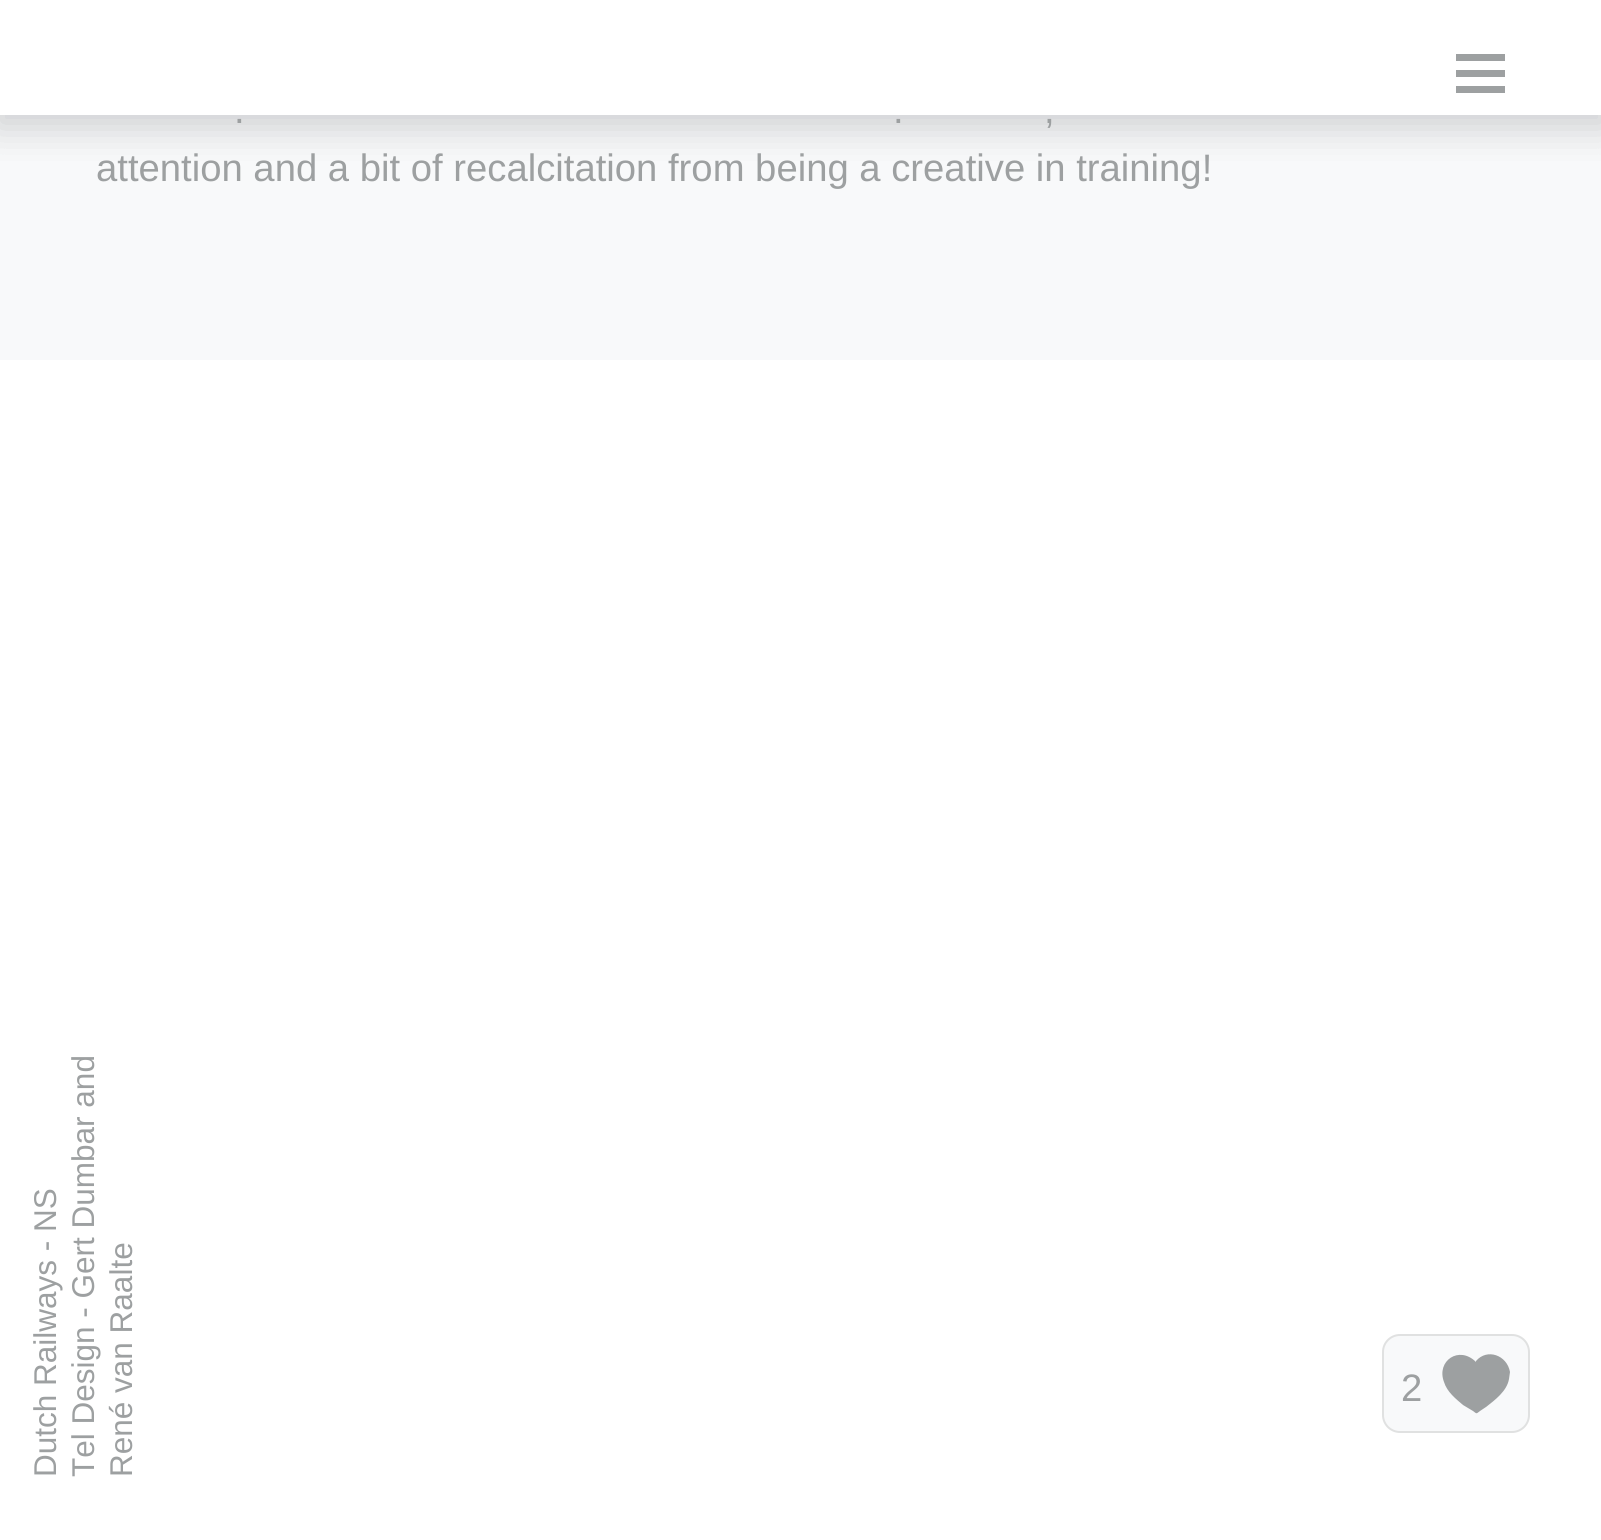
import math
import cairo



def rounded_rect(context, x, y, w, h, r):
    context.new_sub_path()
    for i, (u, v) in enumerate([(x + w - r, y + h - r), (x + r, y + h - r), (x + r, y + r), (x + w - r, y + r)]):
        context.arc(u, v, r, i * math.pi / 2, (i + 1) * math.pi / 2)
    context.close_path()


def draw_shadow(context, x, y, w, h, r, blur, alpha):
    context.push_group_with_content(cairo.Content.ALPHA)
    context.set_operator(cairo.Operator.SOURCE)
    for i in range(15, -16, -2):
        e = blur * i / 6
        if min(w, h) + 2 * e > 0:
            context.set_source_rgba(0, 0, 0, alpha * math.erfc((i - 1) / 8.5) / 2)
            rounded_rect(context, x - e, y - e, w + 2 * e, h + 2 * e, max(0, min(r + e + blur * .6, min(w, h) / 2 + e)))
            context.fill()
    context.mask(context.pop_group())


def draw(context):
    context.set_source_rgb(248 / 255, 249 / 255, 250 / 255)
    context.paint()
    context.set_source_rgb(157 / 255, 160 / 255, 161 / 255)
    draw_shadow(context, -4, 5, 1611, 123, 0, 18, 0.25)
    draw_shadow(context, -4, 5, 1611, 123, 0, 18, 0.25)
    context.set_source_rgb(1, 1, 1)
    context.rectangle(0, 0, 1601, 115)
    context.fill()
    context.set_source_rgb(157 / 255, 160 / 255, 161 / 255)
    context.rectangle(1456, 54, 49, 7)
    context.fill()
    context.rectangle(1456, 70, 49, 7)
    context.fill()
    context.rectangle(1456, 86, 49, 7)
    context.fill()
    context.set_source_rgb(1, 1, 1)
    context.rectangle(0, 360, 1601, 1180)
    context.fill()
    context.set_source_rgb(248 / 255, 249 / 255, 250 / 255)
    rounded_rect(context, 1383, 1335, 146, 97, 17)
    context.fill_preserve()
    context.set_source_rgb(224 / 255, 225 / 255, 225 / 255)
    context.stroke()
    context.set_source_rgb(157 / 255, 160 / 255, 161 / 255)
    context.new_path()
    context.move_to(1510, 1372)
    context.line_to(1509, 1379)
    context.curve_to(1507, 1391, 1495, 1400, 1486, 1407)
    context.line_to(1480, 1411)
    context.curve_to(1476, 1414, 1477, 1414, 1473, 1411)
    context.line_to(1463, 1405)
    context.curve_to(1456, 1399, 1447, 1392, 1444, 1382)
    context.curve_to(1436, 1361, 1459, 1345, 1476, 1362)
    context.line_to(1476, 1361)
    context.curve_to(1487, 1348, 1507, 1355, 1510, 1372)
    context.close_path()
    context.fill()
    context.select_font_face("Liberation Sans")
    context.set_font_size(38.25)
    context.move_to(234, 123)
    context.show_text(".")
    context.move_to(893, 123)
    context.show_text(".")
    context.move_to(1044, 123)
    context.show_text(",")
    context.move_to(96, 181)
    context.show_text("attention and a bit of recalcitation from being a creative in training!")
    context.set_font_size(31.5)
    context.save()
    context.translate(56, 1477)
    context.rotate(-90 * math.pi / 180)
    context.move_to(0, 0)
    context.show_text("Dutch Railways - NS")
    context.restore()
    context.save()
    context.translate(94, 1477)
    context.rotate(-90 * math.pi / 180)
    context.move_to(0, 0)
    context.show_text("Tel Design - Gert Dumbar and")
    context.restore()
    context.save()
    context.translate(132, 1477)
    context.rotate(-90 * math.pi / 180)
    context.move_to(0, 0)
    context.show_text("René van Raalte")
    context.restore()
    context.set_font_size(38.25)
    context.move_to(1401, 1401)
    context.show_text("2")


surface = cairo.ImageSurface(cairo.Format.RGB24, 1601, 1540)
context = cairo.Context(surface)
options = cairo.FontOptions()
options.set_hint_metrics(cairo.HintMetrics.OFF)
options.set_hint_style(cairo.HintStyle.NONE)
context.set_font_options(options)
context.set_miter_limit(4)
draw(context)
surface.write_to_png("out.png")
